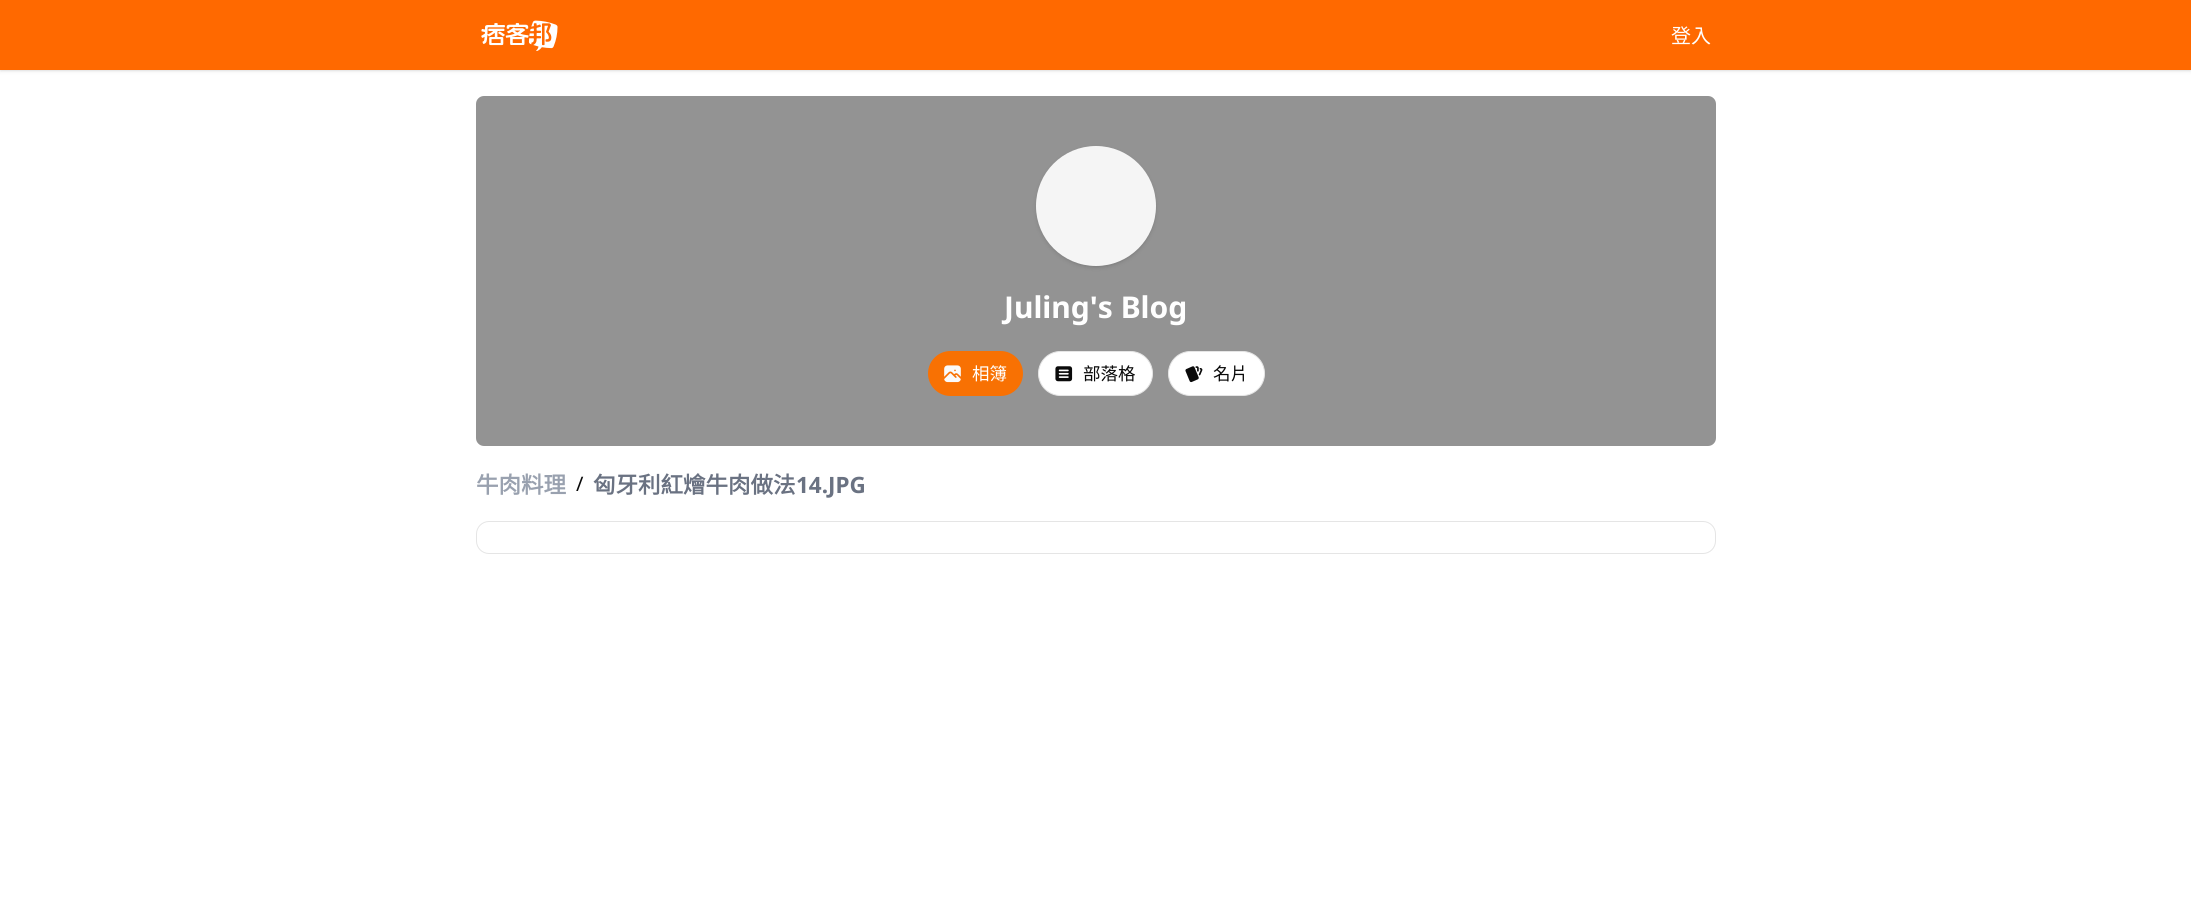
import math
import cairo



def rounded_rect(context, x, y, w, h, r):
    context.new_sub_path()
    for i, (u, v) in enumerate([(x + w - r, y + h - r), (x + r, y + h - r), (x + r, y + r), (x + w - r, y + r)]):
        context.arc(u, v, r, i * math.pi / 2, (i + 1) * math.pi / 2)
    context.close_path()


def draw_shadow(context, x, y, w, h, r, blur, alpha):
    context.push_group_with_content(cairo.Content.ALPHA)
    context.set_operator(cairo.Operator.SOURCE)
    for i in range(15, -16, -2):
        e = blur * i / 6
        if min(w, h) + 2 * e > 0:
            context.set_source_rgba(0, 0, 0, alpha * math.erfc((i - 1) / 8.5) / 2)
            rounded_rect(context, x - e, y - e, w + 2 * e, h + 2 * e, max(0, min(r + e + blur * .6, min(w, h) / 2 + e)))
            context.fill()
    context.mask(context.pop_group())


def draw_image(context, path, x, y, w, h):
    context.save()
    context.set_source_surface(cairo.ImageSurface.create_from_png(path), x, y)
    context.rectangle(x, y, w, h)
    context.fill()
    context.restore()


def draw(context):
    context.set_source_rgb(1, 1, 1)
    context.paint()
    context.set_source_rgb(0, 0, 0)
    draw_shadow(context, 1, 3, 2189, 67, 0, 1, 0.1)
    draw_shadow(context, 0, 1, 2191, 70, 0, 2, 0.1)
    context.set_source_rgb(1, 105 / 255, 0)
    context.rectangle(0, 0, 2191, 70)
    context.fill()
    draw_image(context, "images/1.png", 481, 20, 77, 31)
    context.set_source_rgb(245 / 255, 245 / 255, 245 / 255)
    rounded_rect(context, 476, 96, 1240, 350, 8)
    context.fill()
    context.set_source_rgba(0, 0, 0, 0.4)
    rounded_rect(context, 476, 96, 1240, 350, 8)
    context.fill()
    context.set_source_rgb(0, 0, 0)
    draw_shadow(context, 1038, 149, 117, 117, 58.5, 1, 0.1)
    draw_shadow(context, 1036, 148, 120, 120, 60, 2, 0.1)
    context.set_source_rgb(245 / 255, 245 / 255, 245 / 255)
    context.arc(1096, 206, 60, 0, 2 * math.pi)
    context.fill()
    context.set_source_rgb(248 / 255, 113 / 255, 3 / 255)
    rounded_rect(context, 928, 351, 95, 45, 22.5)
    context.fill()
    draw_image(context, "images/2.png", 944, 365, 17, 18)
    context.set_source_rgb(1, 1, 1)
    rounded_rect(context, 1038.5, 351.5, 114, 44, 22)
    context.fill_preserve()
    context.set_source_rgb(229 / 255, 229 / 255, 229 / 255)
    context.set_line_width(1)
    context.stroke()
    draw_image(context, "images/3.png", 1055, 366, 18, 16)
    context.set_source_rgb(1, 1, 1)
    rounded_rect(context, 1168.5, 351.5, 96, 44, 22)
    context.fill_preserve()
    context.set_source_rgb(229 / 255, 229 / 255, 229 / 255)
    context.stroke()
    draw_image(context, "images/4.png", 1185, 366, 18, 17)
    rounded_rect(context, 476.5, 521.5, 1239, 32, 12.5)
    context.stroke()
    context.select_font_face("Noto Sans CJK TC")
    context.set_font_size(20)
    context.set_source_rgb(1, 1, 1)
    context.move_to(1671, 43)
    context.show_text("登入")
    context.select_font_face("Noto Sans", cairo.FontSlant.NORMAL, cairo.FontWeight.BOLD)
    context.set_font_size(30)
    context.move_to(1004, 318)
    context.show_text("Juling's Blog")
    context.select_font_face("Noto Sans CJK TC")
    context.set_font_size(17.5)
    context.move_to(972, 380)
    context.show_text("相簿")
    context.set_source_rgb(10 / 255, 10 / 255, 10 / 255)
    context.move_to(1083, 380)
    context.show_text("部落格")
    context.move_to(1213, 380)
    context.show_text("名片")
    context.select_font_face("Noto Sans CJK TC", cairo.FontSlant.NORMAL, cairo.FontWeight.BOLD)
    context.set_font_size(22.5)
    context.set_source_rgb(153 / 255, 161 / 255, 175 / 255)
    context.move_to(476, 493)
    context.show_text("牛肉料理")
    context.select_font_face("Noto Sans")
    context.set_font_size(20)
    context.set_source_rgb(10 / 255, 10 / 255, 10 / 255)
    context.move_to(576, 491)
    context.show_text("/")
    context.select_font_face("Noto Sans CJK TC", cairo.FontSlant.NORMAL, cairo.FontWeight.BOLD)
    context.set_font_size(22.5)
    context.set_source_rgb(106 / 255, 114 / 255, 130 / 255)
    context.move_to(593, 493)
    context.show_text("匈牙利紅燴牛肉做法")
    context.select_font_face("Noto Sans", cairo.FontSlant.NORMAL, cairo.FontWeight.BOLD)
    context.move_to(796, 493)
    context.show_text("14.JPG")


surface = cairo.ImageSurface(cairo.Format.RGB24, 2191, 907)
context = cairo.Context(surface)
options = cairo.FontOptions()
options.set_hint_metrics(cairo.HintMetrics.OFF)
options.set_hint_style(cairo.HintStyle.NONE)
context.set_font_options(options)
context.set_miter_limit(4)
draw(context)
surface.write_to_png("out.png")
